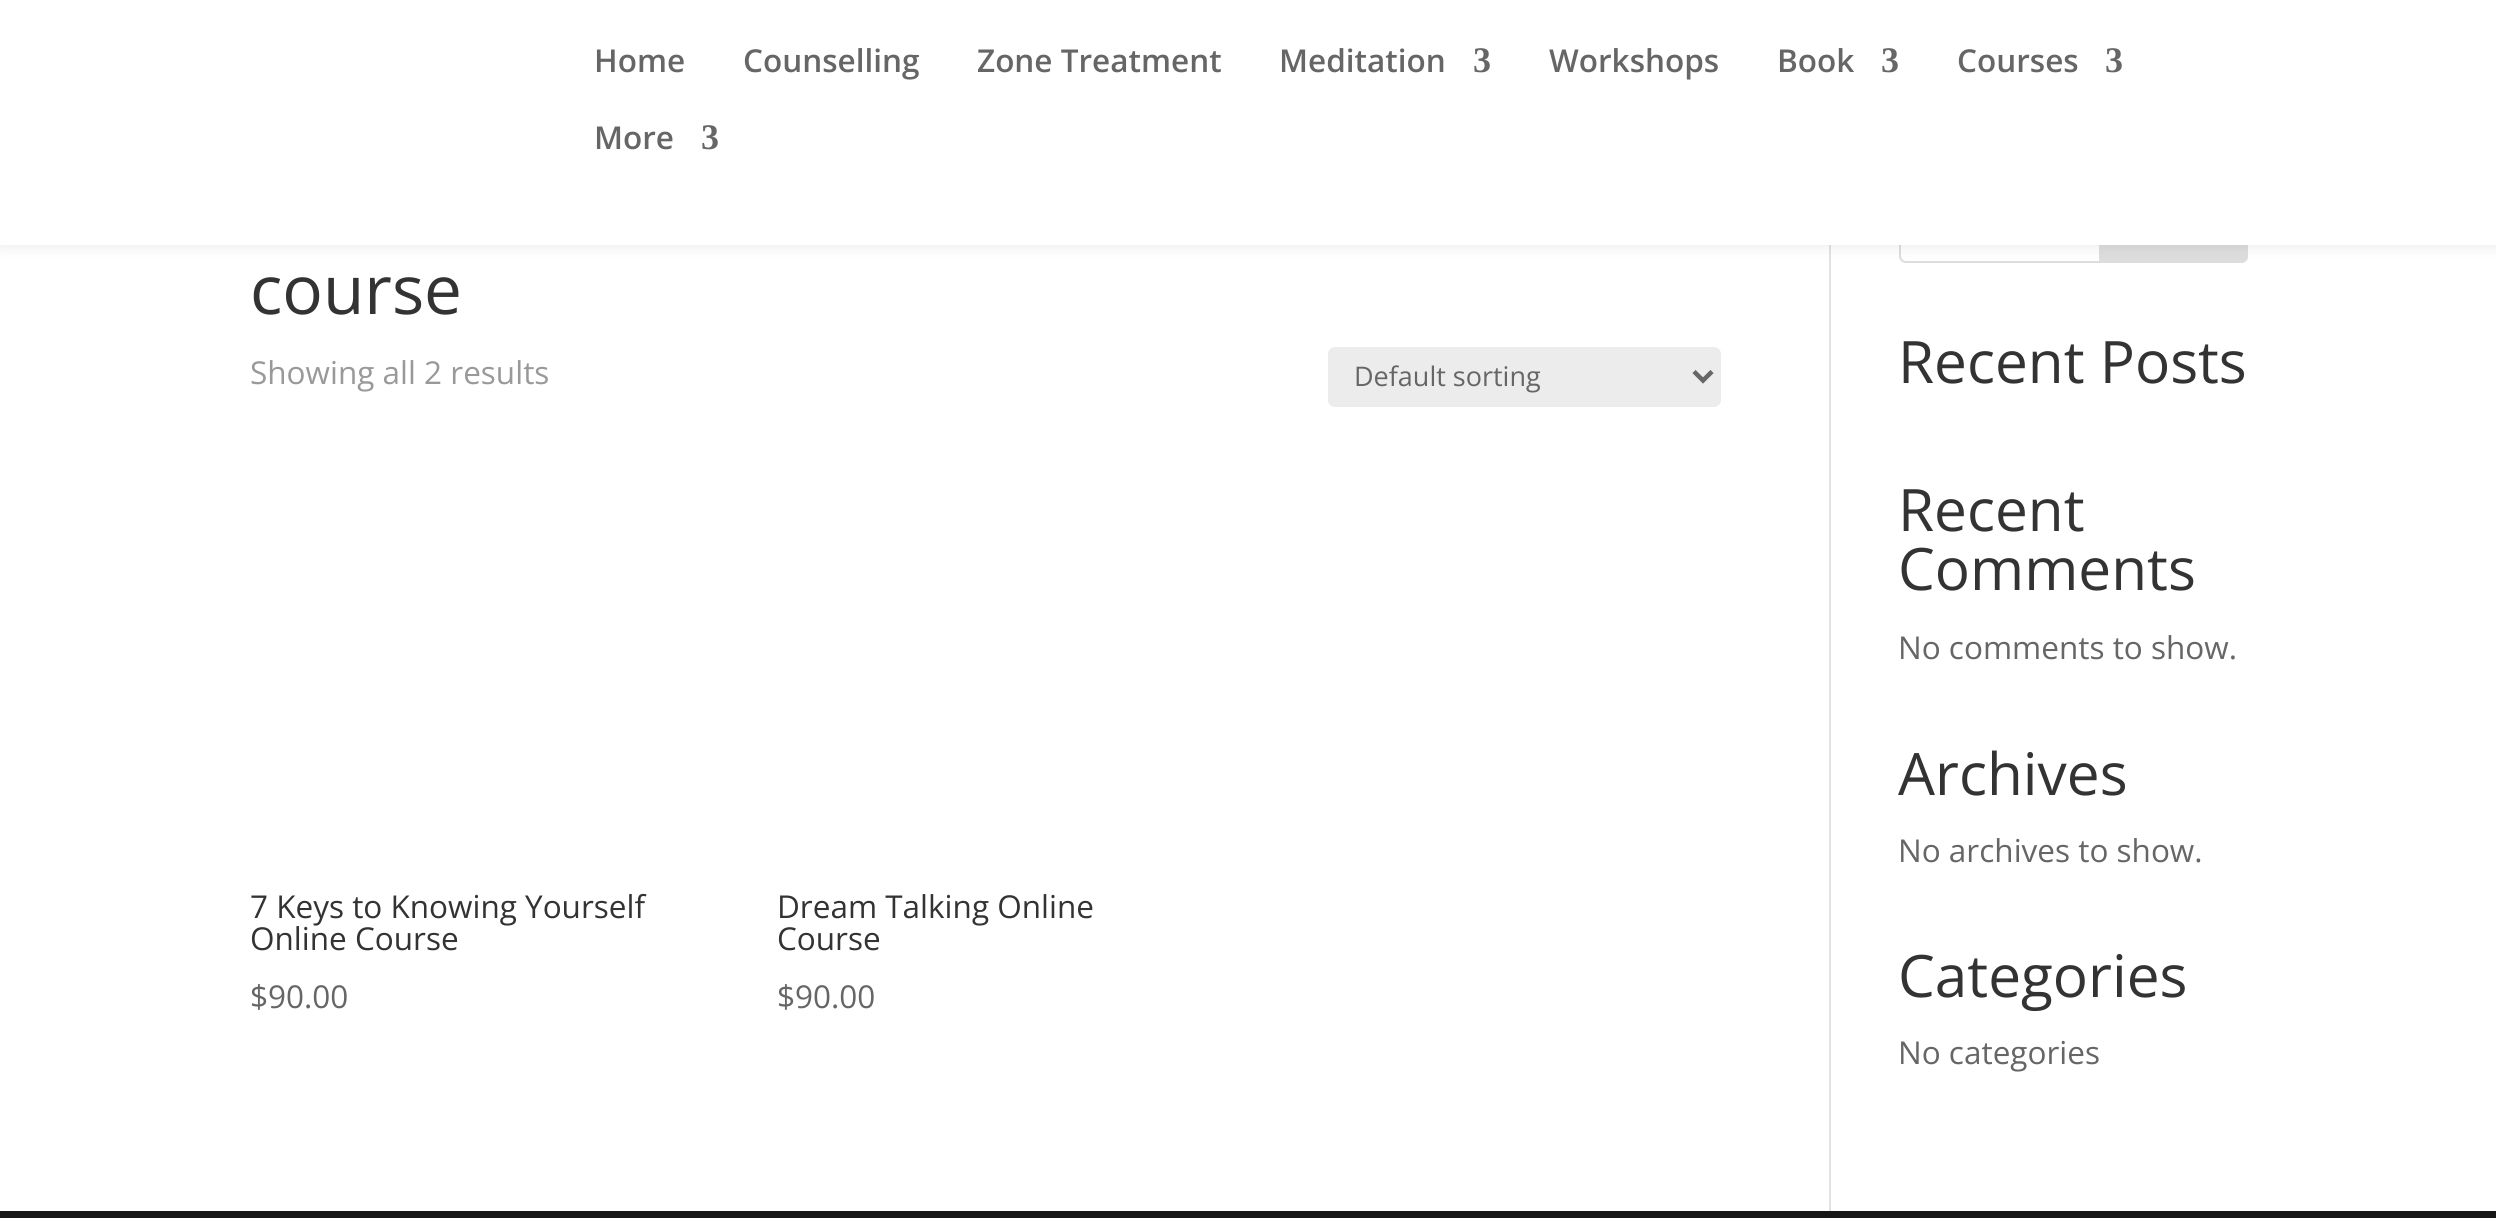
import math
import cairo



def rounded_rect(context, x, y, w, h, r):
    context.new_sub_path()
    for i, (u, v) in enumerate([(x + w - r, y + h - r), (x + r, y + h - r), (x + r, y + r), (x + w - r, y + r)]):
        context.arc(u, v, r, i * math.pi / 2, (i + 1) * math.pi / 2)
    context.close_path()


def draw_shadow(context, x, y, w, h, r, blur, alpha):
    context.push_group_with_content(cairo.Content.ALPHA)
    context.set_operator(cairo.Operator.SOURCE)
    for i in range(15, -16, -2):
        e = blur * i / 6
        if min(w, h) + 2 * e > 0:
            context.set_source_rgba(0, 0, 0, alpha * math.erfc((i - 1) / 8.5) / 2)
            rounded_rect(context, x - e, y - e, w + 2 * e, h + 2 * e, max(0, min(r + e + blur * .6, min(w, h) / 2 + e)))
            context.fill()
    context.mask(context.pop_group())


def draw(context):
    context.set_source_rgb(1, 1, 1)
    context.paint()
    context.set_source_rgb(226 / 255, 226 / 255, 226 / 255)
    context.rectangle(1829, 245, 2, 966)
    context.fill()
    rounded_rect(context, 1900, 174, 347, 88, 6)
    context.set_source_rgb(221 / 255, 221 / 255, 221 / 255)
    context.stroke()
    context.new_path()
    context.move_to(2100, 174)
    context.line_to(2241, 174)
    context.curve_to(2244.5, 174, 2247, 176.5, 2247, 180)
    context.line_to(2247, 256)
    context.curve_to(2247, 259.5, 2244.5, 262, 2241, 262)
    context.line_to(2100, 262)
    context.close_path()
    context.fill_preserve()
    context.stroke()
    context.set_source_rgb(0, 0, 0)
    draw_shadow(context, 0, 0, 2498, 245, 0, 8, 0.1)
    context.set_source_rgb(1, 1, 1)
    context.rectangle(0, 0, 2496, 245)
    context.fill()
    context.set_source_rgb(236 / 255, 236 / 255, 236 / 255)
    rounded_rect(context, 1328, 347, 393, 60, 7)
    context.fill()
    context.new_path()
    context.move_to(1694, 371.5)
    context.line_to(1703, 380.5)
    context.line_to(1712, 371.5)
    context.set_source_rgb(102 / 255, 102 / 255, 102 / 255)
    context.set_line_width(4.5)
    context.stroke()
    context.set_source_rgb(23 / 255, 23 / 255, 23 / 255)
    context.rectangle(0, 1211, 2496, 7)
    context.fill()
    context.select_font_face("Open Sans SemiBold")
    context.set_font_size(31.5)
    context.set_source_rgb(102 / 255, 102 / 255, 102 / 255)
    context.move_to(594, 72)
    context.show_text("Home")
    context.move_to(743, 72)
    context.show_text("Counselling")
    context.move_to(977, 72)
    context.show_text("Zone Treatment")
    context.move_to(1279, 72)
    context.show_text("Meditation")
    context.select_font_face("Liberation Serif", cairo.FontSlant.NORMAL, cairo.FontWeight.BOLD)
    context.set_font_size(36)
    context.move_to(1473, 72)
    context.show_text("3")
    context.select_font_face("Open Sans SemiBold")
    context.set_font_size(31.5)
    context.move_to(1549, 72)
    context.show_text("Workshops")
    context.move_to(1777, 72)
    context.show_text("Book")
    context.select_font_face("Liberation Serif", cairo.FontSlant.NORMAL, cairo.FontWeight.BOLD)
    context.set_font_size(36)
    context.move_to(1881, 72)
    context.show_text("3")
    context.select_font_face("Open Sans SemiBold")
    context.set_font_size(31.5)
    context.move_to(1957, 72)
    context.show_text("Courses")
    context.select_font_face("Liberation Serif", cairo.FontSlant.NORMAL, cairo.FontWeight.BOLD)
    context.set_font_size(36)
    context.move_to(2105, 72)
    context.show_text("3")
    context.select_font_face("Open Sans SemiBold")
    context.set_font_size(31.5)
    context.move_to(594, 149)
    context.show_text("More")
    context.select_font_face("Liberation Serif", cairo.FontSlant.NORMAL, cairo.FontWeight.BOLD)
    context.set_font_size(36)
    context.move_to(701, 149)
    context.show_text("3")
    context.select_font_face("Open Sans")
    context.set_font_size(67.5)
    context.set_source_rgb(51 / 255, 51 / 255, 51 / 255)
    context.move_to(250, 314)
    context.show_text("course")
    context.set_font_size(31.5)
    context.set_source_rgb(153 / 255, 153 / 255, 153 / 255)
    context.move_to(250, 384)
    context.show_text("Showing all 2 results")
    context.set_font_size(27)
    context.set_source_rgb(102 / 255, 102 / 255, 102 / 255)
    context.move_to(1354, 386)
    context.show_text("Default sorting")
    context.set_font_size(31.5)
    context.set_source_rgb(51 / 255, 51 / 255, 51 / 255)
    context.move_to(250, 918)
    context.show_text("7 Keys to Knowing Yourself")
    context.move_to(250, 950)
    context.show_text("Online Course")
    context.set_source_rgb(102 / 255, 102 / 255, 102 / 255)
    context.move_to(250, 1008)
    context.show_text("$90.00")
    context.set_source_rgb(51 / 255, 51 / 255, 51 / 255)
    context.move_to(777, 918)
    context.show_text("Dream Talking Online")
    context.move_to(777, 950)
    context.show_text("Course")
    context.set_source_rgb(102 / 255, 102 / 255, 102 / 255)
    context.move_to(777, 1008)
    context.show_text("$90.00")
    context.set_font_size(58.5)
    context.set_source_rgb(51 / 255, 51 / 255, 51 / 255)
    context.move_to(1898, 383)
    context.show_text("Recent Posts")
    context.move_to(1898, 531)
    context.show_text("Recent")
    context.move_to(1898, 590)
    context.show_text("Comments")
    context.set_font_size(31.5)
    context.set_source_rgb(102 / 255, 102 / 255, 102 / 255)
    context.move_to(1898, 659)
    context.show_text("No comments to show.")
    context.set_font_size(58.5)
    context.set_source_rgb(51 / 255, 51 / 255, 51 / 255)
    context.move_to(1898, 795)
    context.show_text("Archives")
    context.set_font_size(31.5)
    context.set_source_rgb(102 / 255, 102 / 255, 102 / 255)
    context.move_to(1898, 862)
    context.show_text("No archives to show.")
    context.set_font_size(58.5)
    context.set_source_rgb(51 / 255, 51 / 255, 51 / 255)
    context.move_to(1898, 997)
    context.show_text("Categories")
    context.set_font_size(31.5)
    context.set_source_rgb(102 / 255, 102 / 255, 102 / 255)
    context.move_to(1898, 1064)
    context.show_text("No categories")


surface = cairo.ImageSurface(cairo.Format.RGB24, 2496, 1218)
context = cairo.Context(surface)
options = cairo.FontOptions()
options.set_hint_metrics(cairo.HintMetrics.OFF)
options.set_hint_style(cairo.HintStyle.NONE)
context.set_font_options(options)
context.set_miter_limit(4)
draw(context)
surface.write_to_png("out.png")
